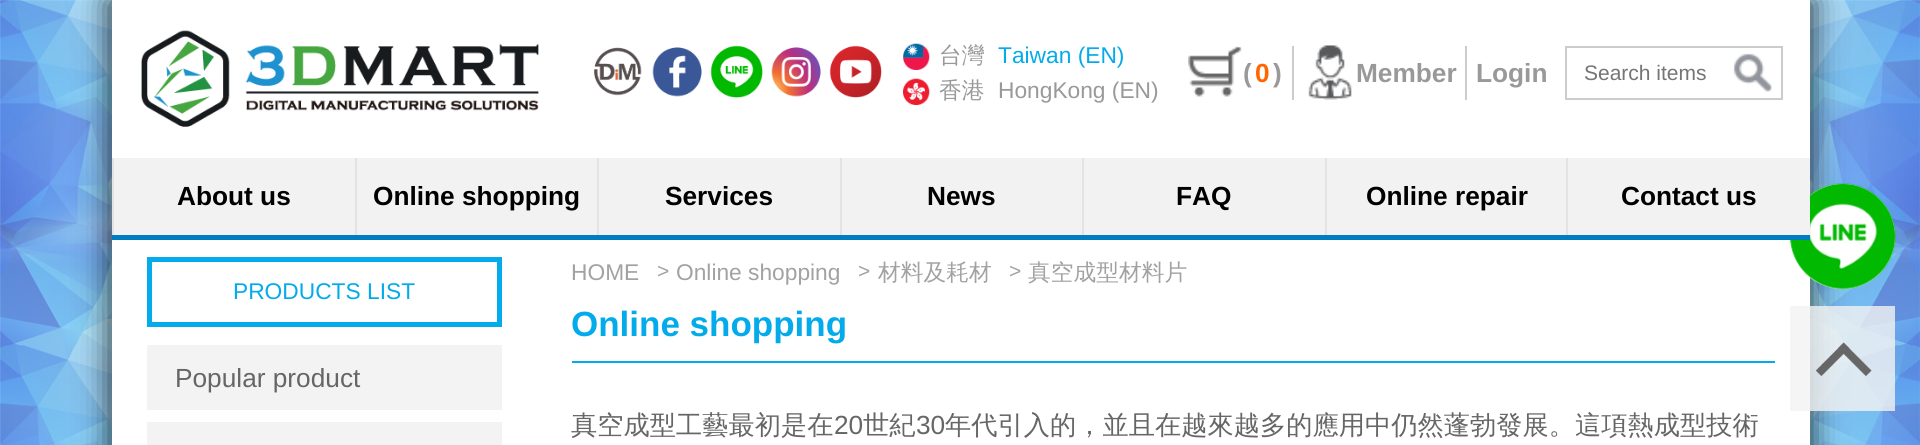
import math
import cairo



def rounded_rect(context, x, y, w, h, r):
    context.new_sub_path()
    for i, (u, v) in enumerate([(x + w - r, y + h - r), (x + r, y + h - r), (x + r, y + r), (x + w - r, y + r)]):
        context.arc(u, v, r, i * math.pi / 2, (i + 1) * math.pi / 2)
    context.close_path()


def draw_shadow(context, x, y, w, h, r, blur, alpha):
    context.push_group_with_content(cairo.Content.ALPHA)
    context.set_operator(cairo.Operator.SOURCE)
    for i in range(15, -16, -2):
        e = blur * i / 6
        if min(w, h) + 2 * e > 0:
            context.set_source_rgba(0, 0, 0, alpha * math.erfc((i - 1) / 8.5) / 2)
            rounded_rect(context, x - e, y - e, w + 2 * e, h + 2 * e, max(0, min(r + e + blur * .6, min(w, h) / 2 + e)))
            context.fill()
    context.mask(context.pop_group())


def draw_image(context, path, x, y, w, h):
    context.save()
    context.set_source_surface(cairo.ImageSurface.create_from_png(path), x, y)
    context.rectangle(x, y, w, h)
    context.fill()
    context.restore()


def draw(context):
    context.set_source_rgb(1, 1, 1)
    context.paint()
    draw_image(context, "images/1.png", 0, 0, 1920, 445)
    context.set_source_rgb(0, 0, 0)
    draw_shadow(context, 110, 0, 1701, 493, 0, 16, 0.8)
    context.set_source_rgb(1, 1, 1)
    context.rectangle(112, 0, 1698, 158)
    context.fill()
    context.rectangle(112, 240, 1698, 205)
    context.fill()
    context.arc(1842.5, 236.5, 52.5, 0, 2 * math.pi)
    context.fill()
    draw_image(context, "images/13.png", 1790, 183, 106, 106)
    context.set_source_rgb(0, 125 / 255, 190 / 255)
    context.rectangle(112, 235, 1698, 5)
    context.fill()
    draw_image(context, "images/2.png", 141, 30, 398, 97)
    draw_image(context, "images/3.png", 594, 47, 48, 49)
    draw_image(context, "images/4.png", 652, 47, 50, 50)
    draw_image(context, "images/5.png", 710, 45, 53, 53)
    draw_image(context, "images/6.png", 771, 47, 50, 50)
    draw_image(context, "images/7.png", 829, 45, 53, 53)
    draw_image(context, "images/8.png", 903, 43, 27, 27)
    draw_image(context, "images/9.png", 903, 78, 27, 27)
    draw_image(context, "images/10.png", 1188, 46, 54, 51)
    context.set_source_rgb(204 / 255, 204 / 255, 204 / 255)
    context.rectangle(1292, 46, 2, 54)
    context.fill()
    draw_image(context, "images/11.png", 1308, 45, 44, 55)
    context.rectangle(1465, 46, 2, 54)
    context.fill()
    context.rectangle(1566, 47, 216, 52)
    context.stroke()
    draw_image(context, "images/12.png", 1733, 53, 39, 39)
    context.set_source_rgb(242 / 255, 242 / 255, 242 / 255)
    context.rectangle(114, 158, 241, 77)
    context.fill()
    context.set_source_rgb(227 / 255, 227 / 255, 227 / 255)
    context.rectangle(112, 158, 2, 77)
    context.fill()
    context.set_source_rgb(242 / 255, 242 / 255, 242 / 255)
    context.rectangle(357, 158, 240, 77)
    context.fill()
    context.set_source_rgb(227 / 255, 227 / 255, 227 / 255)
    context.rectangle(355, 158, 2, 77)
    context.fill()
    context.set_source_rgb(242 / 255, 242 / 255, 242 / 255)
    context.rectangle(599, 158, 241, 77)
    context.fill()
    context.set_source_rgb(227 / 255, 227 / 255, 227 / 255)
    context.rectangle(597, 158, 2, 77)
    context.fill()
    context.set_source_rgb(242 / 255, 242 / 255, 242 / 255)
    context.rectangle(842, 158, 240, 77)
    context.fill()
    context.set_source_rgb(227 / 255, 227 / 255, 227 / 255)
    context.rectangle(840, 158, 2, 77)
    context.fill()
    context.set_source_rgb(242 / 255, 242 / 255, 242 / 255)
    context.rectangle(1084, 158, 241, 77)
    context.fill()
    context.set_source_rgb(227 / 255, 227 / 255, 227 / 255)
    context.rectangle(1082, 158, 2, 77)
    context.fill()
    context.set_source_rgb(242 / 255, 242 / 255, 242 / 255)
    context.rectangle(1327, 158, 239, 77)
    context.fill()
    context.set_source_rgb(227 / 255, 227 / 255, 227 / 255)
    context.rectangle(1325, 158, 2, 77)
    context.fill()
    context.set_source_rgb(242 / 255, 242 / 255, 242 / 255)
    context.rectangle(1568, 158, 242, 77)
    context.fill()
    context.set_source_rgb(227 / 255, 227 / 255, 227 / 255)
    context.rectangle(1566, 158, 2, 77)
    context.fill()
    context.rectangle(149.5, 259.5, 350, 65)
    context.set_source_rgb(3 / 255, 171 / 255, 234 / 255)
    context.set_line_width(5)
    context.stroke()
    context.set_source_rgb(243 / 255, 243 / 255, 243 / 255)
    context.rectangle(147, 345, 355, 65)
    context.fill()
    context.rectangle(147, 422, 355, 23)
    context.fill()
    context.set_source_rgb(3 / 255, 171 / 255, 234 / 255)
    context.rectangle(572, 361, 1203, 2)
    context.fill()
    context.set_source_rgba(242 / 255, 242 / 255, 242 / 255, 0.8)
    context.rectangle(1790, 306, 105, 105)
    context.fill()
    draw_image(context, "images/14.png", 1815, 342, 57, 34)
    context.select_font_face("WenQuanYi Zen Hei Medium")
    context.set_font_size(22.75)
    context.set_source_rgb(153 / 255, 153 / 255, 153 / 255)
    context.move_to(939, 63)
    context.show_text("台灣")
    context.select_font_face("Liberation Sans")
    context.set_source_rgb(3 / 255, 171 / 255, 234 / 255)
    context.move_to(998, 63)
    context.show_text("Taiwan (EN)")
    context.select_font_face("WenQuanYi Zen Hei Medium")
    context.set_source_rgb(153 / 255, 153 / 255, 153 / 255)
    context.move_to(939, 98)
    context.show_text("香港")
    context.select_font_face("Liberation Sans")
    context.move_to(998, 98)
    context.show_text("HongKong (EN)")
    context.select_font_face("Liberation Sans", cairo.FontSlant.NORMAL, cairo.FontWeight.BOLD)
    context.set_font_size(26.25)
    context.move_to(1243, 82)
    context.show_text("(")
    context.set_source_rgb(1, 102 / 255, 0)
    context.move_to(1255, 82)
    context.show_text("0")
    context.set_source_rgb(153 / 255, 153 / 255, 153 / 255)
    context.move_to(1273, 82)
    context.show_text(")")
    context.move_to(1356, 82)
    context.show_text("Member")
    context.move_to(1476, 82)
    context.show_text("Login")
    context.select_font_face("Liberation Sans")
    context.set_font_size(21)
    context.set_source_rgb(117 / 255, 117 / 255, 117 / 255)
    context.move_to(1584, 80)
    context.show_text("Search items")
    context.select_font_face("Liberation Sans", cairo.FontSlant.NORMAL, cairo.FontWeight.BOLD)
    context.set_font_size(26.25)
    context.set_source_rgb(0, 0, 0)
    context.move_to(177, 205)
    context.show_text("About us")
    context.move_to(373, 205)
    context.show_text("Online shopping")
    context.move_to(665, 205)
    context.show_text("Services")
    context.move_to(927, 205)
    context.show_text("News")
    context.move_to(1176, 205)
    context.show_text("FAQ")
    context.move_to(1366, 205)
    context.show_text("Online repair")
    context.move_to(1621, 205)
    context.show_text("Contact us")
    context.select_font_face("Liberation Sans")
    context.set_font_size(22.75)
    context.set_source_rgb(3 / 255, 171 / 255, 234 / 255)
    context.move_to(233, 299)
    context.show_text("PRODUCTS LIST")
    context.set_font_size(26.25)
    context.set_source_rgb(102 / 255, 102 / 255, 102 / 255)
    context.move_to(175, 387)
    context.show_text("Popular product")
    context.set_font_size(22.75)
    context.set_source_rgb(162 / 255, 162 / 255, 162 / 255)
    context.move_to(571, 280)
    context.show_text("HOME")
    context.set_font_size(21)
    context.move_to(657, 278)
    context.show_text(">")
    context.set_font_size(22.75)
    context.move_to(676, 280)
    context.show_text("Online shopping")
    context.set_font_size(21)
    context.move_to(858, 278)
    context.show_text(">")
    context.select_font_face("WenQuanYi Zen Hei Medium")
    context.set_font_size(22.75)
    context.move_to(878, 280)
    context.show_text("材料及耗材")
    context.select_font_face("Liberation Sans")
    context.set_font_size(21)
    context.move_to(1009, 278)
    context.show_text(">")
    context.select_font_face("WenQuanYi Zen Hei Medium")
    context.set_font_size(22.75)
    context.move_to(1028, 280)
    context.show_text("真空成型材料片")
    context.select_font_face("Liberation Sans", cairo.FontSlant.NORMAL, cairo.FontWeight.BOLD)
    context.set_font_size(35)
    context.set_source_rgb(3 / 255, 171 / 255, 234 / 255)
    context.move_to(571, 336)
    context.show_text("Online shopping")
    context.select_font_face("WenQuanYi Zen Hei Medium")
    context.set_font_size(26.25)
    context.set_source_rgb(102 / 255, 102 / 255, 102 / 255)
    context.move_to(571, 434)
    context.show_text("真空成型工藝最初是在")
    context.select_font_face("Liberation Sans")
    context.move_to(834, 434)
    context.show_text("20")
    context.select_font_face("WenQuanYi Zen Hei Medium")
    context.move_to(863, 434)
    context.show_text("世紀")
    context.select_font_face("Liberation Sans")
    context.move_to(916, 434)
    context.show_text("30")
    context.select_font_face("WenQuanYi Zen Hei Medium")
    context.move_to(945, 434)
    context.show_text("年代引入的，並且在越來越多的應用中仍然蓬勃發展。這項熱成型技術")


surface = cairo.ImageSurface(cairo.Format.RGB24, 1920, 445)
context = cairo.Context(surface)
options = cairo.FontOptions()
options.set_hint_metrics(cairo.HintMetrics.OFF)
options.set_hint_style(cairo.HintStyle.NONE)
context.set_font_options(options)
context.set_miter_limit(4)
draw(context)
surface.write_to_png("out.png")
